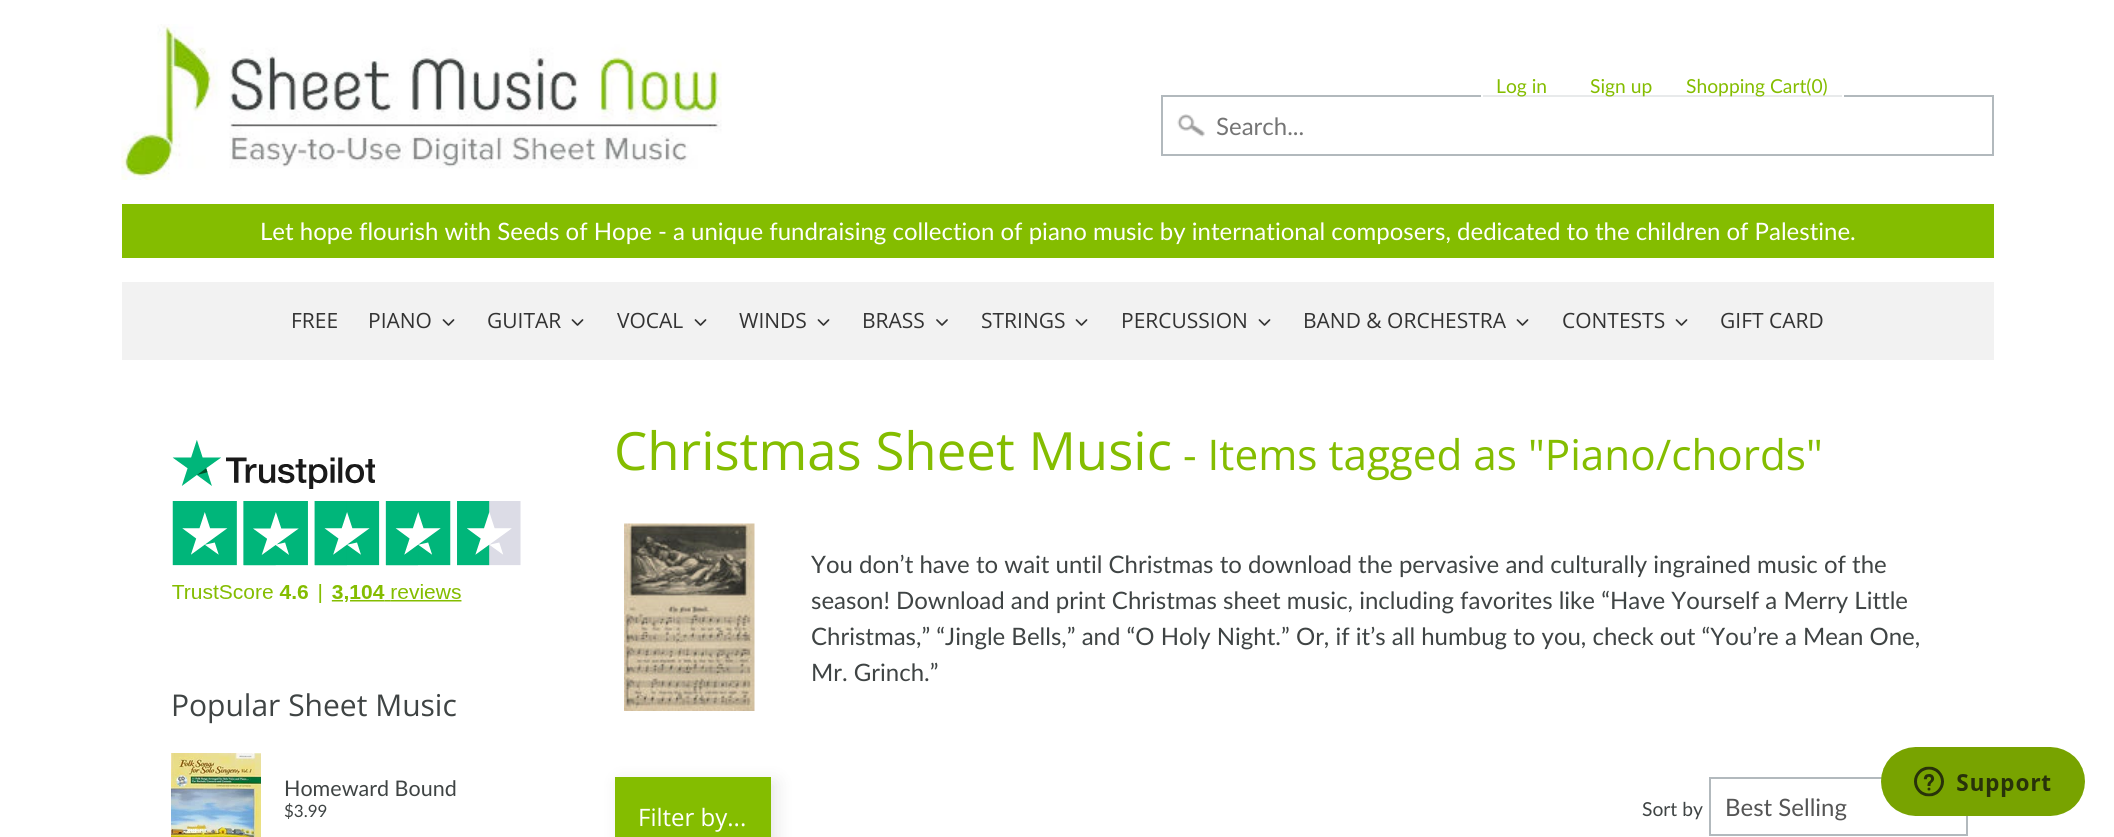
import math
import cairo



def rounded_rect(context, x, y, w, h, r):
    context.new_sub_path()
    for i, (u, v) in enumerate([(x + w - r, y + h - r), (x + r, y + h - r), (x + r, y + r), (x + w - r, y + r)]):
        context.arc(u, v, r, i * math.pi / 2, (i + 1) * math.pi / 2)
    context.close_path()


def draw_shadow(context, x, y, w, h, r, blur, alpha):
    context.push_group_with_content(cairo.Content.ALPHA)
    context.set_operator(cairo.Operator.SOURCE)
    for i in range(15, -16, -2):
        e = blur * i / 6
        if min(w, h) + 2 * e > 0:
            context.set_source_rgba(0, 0, 0, alpha * math.erfc((i - 1) / 8.5) / 2)
            rounded_rect(context, x - e, y - e, w + 2 * e, h + 2 * e, max(0, min(r + e + blur * .6, min(w, h) / 2 + e)))
            context.fill()
    context.mask(context.pop_group())


def draw_image(context, path, x, y, w, h):
    context.save()
    context.set_source_surface(cairo.ImageSurface.create_from_png(path), x, y)
    context.rectangle(x, y, w, h)
    context.fill()
    context.restore()


def draw(context):
    context.set_source_rgb(1, 1, 1)
    context.paint()
    draw_image(context, "images/1.png", 121, 24, 601, 156)
    draw_image(context, "images/2.png", 1177, 114, 28, 23)
    context.rectangle(1162, 96, 831, 59)
    context.set_source_rgb(178 / 255, 185 / 255, 189 / 255)
    context.stroke()
    context.set_source_rgba(1, 1, 1, 0.7)
    context.rectangle(1483, 95, 359, 2)
    context.fill()
    context.rectangle(1482, 70, 361, 33)
    context.set_source_rgb(1, 1, 1)
    context.stroke()
    context.set_source_rgb(132 / 255, 189 / 255, 0)
    context.rectangle(122, 204, 1872, 54)
    context.fill()
    context.set_source_rgb(242 / 255, 242 / 255, 242 / 255)
    context.rectangle(122, 282, 1872, 78)
    context.fill()
    draw_image(context, "images/3.png", 442, 319, 13, 7)
    draw_image(context, "images/3.png", 571, 319, 13, 7)
    draw_image(context, "images/3.png", 694, 319, 13, 7)
    draw_image(context, "images/3.png", 817, 319, 13, 7)
    draw_image(context, "images/4.png", 936, 319, 12, 7)
    draw_image(context, "images/3.png", 1075, 319, 13, 7)
    draw_image(context, "images/3.png", 1258, 319, 13, 7)
    draw_image(context, "images/3.png", 1516, 319, 13, 7)
    draw_image(context, "images/3.png", 1675, 319, 13, 7)
    draw_image(context, "images/5.png", 172, 440, 349, 163)
    draw_image(context, "images/6.png", 171, 753, 90, 84)
    draw_image(context, "images/7.png", 624, 523, 131, 188)
    context.set_source_rgb(0, 0, 0)
    draw_shadow(context, 620, 782, 156, 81, 0, 9, 0.1)
    context.set_source_rgb(132 / 255, 189 / 255, 0)
    context.rectangle(615, 777, 156, 60)
    context.fill()
    context.rectangle(1710, 778, 257, 57)
    context.set_source_rgb(178 / 255, 185 / 255, 189 / 255)
    context.stroke()
    draw_image(context, "images/8.png", 1881, 747, 204, 69)
    context.select_font_face("Lato")
    context.set_font_size(19.25)
    context.set_source_rgb(132 / 255, 189 / 255, 0)
    context.move_to(1496, 93)
    context.show_text("Log in")
    context.move_to(1590, 93)
    context.show_text("Sign up")
    context.move_to(1686, 93)
    context.show_text("Shopping Cart(0)")
    context.set_font_size(24)
    context.set_source_rgb(117 / 255, 117 / 255, 117 / 255)
    context.move_to(1216, 135)
    context.show_text("Search...")
    context.set_source_rgb(1, 1, 1)
    context.move_to(260, 240)
    context.show_text("Let hope flourish with Seeds of Hope - a unique fundraising collection of piano music by international composers, dedicated to the children of Palestine.")
    context.select_font_face("Open Sans")
    context.set_font_size(21)
    context.set_source_rgb(51 / 255, 51 / 255, 51 / 255)
    context.move_to(291, 328)
    context.show_text("FREE")
    context.move_to(368, 328)
    context.show_text("PIANO")
    context.move_to(487, 328)
    context.show_text("GUITAR")
    context.move_to(617, 328)
    context.show_text("VOCAL")
    context.move_to(739, 328)
    context.show_text("WINDS")
    context.move_to(862, 328)
    context.show_text("BRASS")
    context.move_to(981, 328)
    context.show_text("STRINGS")
    context.move_to(1121, 328)
    context.show_text("PERCUSSION")
    context.move_to(1303, 328)
    context.show_text("BAND & ORCHESTRA")
    context.move_to(1562, 328)
    context.show_text("CONTESTS")
    context.move_to(1720, 328)
    context.show_text("GIFT CARD")
    context.set_font_size(30)
    context.set_source_rgb(63 / 255, 68 / 255, 68 / 255)
    context.move_to(171, 716)
    context.show_text("Popular Sheet Music")
    context.select_font_face("Lato")
    context.set_font_size(21.5)
    context.move_to(284, 796)
    context.show_text("Homeward Bound")
    context.set_font_size(17)
    context.move_to(284, 817)
    context.show_text("$3.99")
    context.select_font_face("Open Sans")
    context.set_font_size(52.75)
    context.set_source_rgb(132 / 255, 189 / 255, 0)
    context.move_to(614, 470)
    context.show_text("Christmas Sheet Music")
    context.set_font_size(42.25)
    context.move_to(1183, 470)
    context.show_text("- Items tagged as \"Piano/chords\"")
    context.select_font_face("Lato")
    context.set_font_size(24)
    context.set_source_rgb(63 / 255, 68 / 255, 68 / 255)
    context.move_to(811, 573)
    context.show_text("You don’t have to wait until Christmas to download the pervasive and culturally ingrained music of the")
    context.move_to(811, 609)
    context.show_text("season! Download and print Christmas sheet music, including favorites like “Have Yourself a Merry Little")
    context.move_to(811, 645)
    context.show_text("Christmas,” “Jingle Bells,” and “O Holy Night.” Or, if it’s all humbug to you, check out “You’re a Mean One,")
    context.move_to(811, 681)
    context.show_text("Mr. Grinch.”")
    context.select_font_face("Open Sans")
    context.set_source_rgb(1, 1, 1)
    context.move_to(638, 826)
    context.show_text("Filter by...")
    context.select_font_face("Lato")
    context.set_font_size(19.25)
    context.set_source_rgb(63 / 255, 68 / 255, 68 / 255)
    context.move_to(1642, 816)
    context.show_text("Sort by")
    context.set_font_size(24)
    context.set_source_rgb(85 / 255, 85 / 255, 85 / 255)
    context.move_to(1725, 816)
    context.show_text("Best Selling")


surface = cairo.ImageSurface(cairo.Format.RGB24, 2114, 837)
context = cairo.Context(surface)
options = cairo.FontOptions()
options.set_hint_metrics(cairo.HintMetrics.OFF)
options.set_hint_style(cairo.HintStyle.NONE)
context.set_font_options(options)
context.set_miter_limit(4)
draw(context)
surface.write_to_png("out.png")
